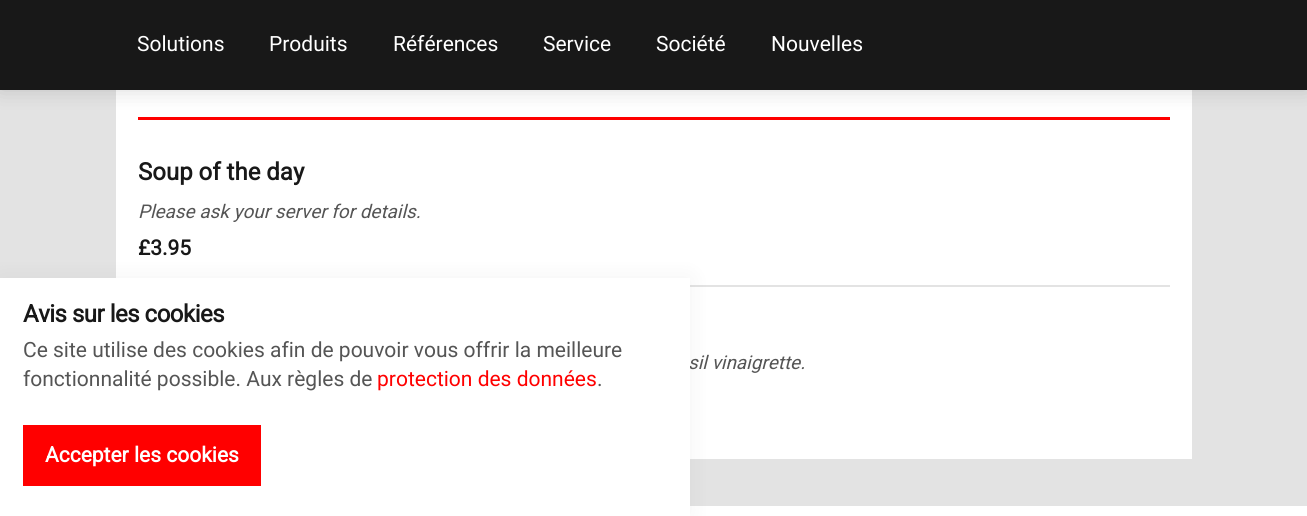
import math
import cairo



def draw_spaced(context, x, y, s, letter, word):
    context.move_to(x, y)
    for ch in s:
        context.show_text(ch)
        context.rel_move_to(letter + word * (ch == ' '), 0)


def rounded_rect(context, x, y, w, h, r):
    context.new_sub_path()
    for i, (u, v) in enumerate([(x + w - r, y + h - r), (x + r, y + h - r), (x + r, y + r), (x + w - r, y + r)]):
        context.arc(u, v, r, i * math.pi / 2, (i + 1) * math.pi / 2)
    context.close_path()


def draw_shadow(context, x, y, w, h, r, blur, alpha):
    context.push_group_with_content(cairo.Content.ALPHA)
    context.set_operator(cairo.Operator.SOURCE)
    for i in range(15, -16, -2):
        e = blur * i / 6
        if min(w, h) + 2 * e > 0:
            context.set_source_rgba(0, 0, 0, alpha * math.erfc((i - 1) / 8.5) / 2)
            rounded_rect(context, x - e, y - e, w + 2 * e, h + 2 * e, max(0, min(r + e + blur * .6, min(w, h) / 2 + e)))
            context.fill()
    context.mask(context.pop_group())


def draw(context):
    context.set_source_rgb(1, 1, 1)
    context.paint()
    context.set_source_rgb(227 / 255, 227 / 255, 227 / 255)
    context.rectangle(0, 90, 1307, 416)
    context.fill()
    context.set_source_rgb(1, 1, 1)
    context.rectangle(116, 90, 1076, 369)
    context.fill()
    context.rectangle(115, 24, 1078, 436)
    context.set_source_rgb(227 / 255, 227 / 255, 227 / 255)
    context.stroke()
    context.set_source_rgb(1, 0, 0)
    context.rectangle(138, 117, 1032, 3)
    context.fill()
    context.set_source_rgb(0, 0, 0)
    draw_shadow(context, 0, -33, 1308, 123, 0, 11, 0.15)
    context.set_source_rgb(24 / 255, 24 / 255, 24 / 255)
    context.rectangle(0, 0, 1307, 90)
    context.fill()
    context.set_source_rgb(227 / 255, 227 / 255, 227 / 255)
    context.rectangle(690, 285, 480, 2)
    context.fill()
    context.set_source_rgb(0, 0, 0)
    draw_shadow(context, 0, 278, 690, 238, 0, 11, 0.05)
    context.select_font_face("Roboto")
    context.set_font_size(21)
    context.set_source_rgb(1, 1, 1)
    context.move_to(137, 51)
    context.show_text("Solutions")
    context.move_to(269, 51)
    context.show_text("Produits")
    context.move_to(393, 51)
    context.show_text("Références")
    context.move_to(543, 51)
    context.show_text("Service")
    context.move_to(656, 51)
    context.show_text("Société")
    context.move_to(771, 51)
    context.show_text("Nouvelles")
    context.select_font_face("Roboto", cairo.FontSlant.NORMAL, cairo.FontWeight.BOLD)
    context.set_font_size(24)
    context.set_source_rgb(24 / 255, 24 / 255, 24 / 255)
    context.move_to(138, 180)
    context.show_text("Soup of the day")
    context.select_font_face("Roboto", cairo.FontSlant.ITALIC)
    context.set_font_size(18.9)
    context.set_source_rgb(85 / 255, 85 / 255, 85 / 255)
    context.move_to(138, 218)
    context.show_text("Please ask your server for details.")
    context.select_font_face("Roboto", cairo.FontSlant.NORMAL, cairo.FontWeight.BOLD)
    context.set_font_size(21)
    context.set_source_rgb(24 / 255, 24 / 255, 24 / 255)
    context.move_to(138, 255)
    context.show_text("£3.95")
    context.select_font_face("Roboto", cairo.FontSlant.ITALIC)
    context.set_font_size(18.9)
    context.set_source_rgb(85 / 255, 85 / 255, 85 / 255)
    context.move_to(688, 369)
    context.show_text("sil vinaigrette.")
    context.set_source_rgb(1, 1, 1)
    context.rectangle(0, 278, 690, 238)
    context.fill()
    context.select_font_face("Roboto", cairo.FontSlant.NORMAL, cairo.FontWeight.BOLD)
    context.set_font_size(24)
    context.set_source_rgb(24 / 255, 24 / 255, 24 / 255)
    draw_spaced(context, 23, 322, "Avis sur les cookies", -0.5, 0)
    context.select_font_face("Roboto")
    context.set_font_size(21)
    context.set_source_rgb(85 / 255, 85 / 255, 85 / 255)
    context.move_to(23, 357)
    context.show_text("Ce site utilise des cookies afin de pouvoir vous offrir la meilleure")
    context.move_to(23, 386)
    context.show_text("fonctionnalité possible. Aux règles de")
    context.set_source_rgb(1, 0, 0)
    context.move_to(377, 386)
    context.show_text("protection des données")
    context.set_source_rgb(85 / 255, 85 / 255, 85 / 255)
    context.move_to(597, 386)
    context.show_text(".")
    context.set_source_rgb(1, 0, 0)
    context.rectangle(23, 425, 238, 61)
    context.fill()
    context.select_font_face("Roboto", cairo.FontSlant.NORMAL, cairo.FontWeight.BOLD)
    context.set_source_rgb(1, 1, 1)
    context.move_to(45, 462)
    context.show_text("Accepter les cookies")


surface = cairo.ImageSurface(cairo.Format.RGB24, 1307, 516)
context = cairo.Context(surface)
options = cairo.FontOptions()
options.set_hint_metrics(cairo.HintMetrics.OFF)
options.set_hint_style(cairo.HintStyle.NONE)
context.set_font_options(options)
context.set_miter_limit(4)
draw(context)
surface.write_to_png("out.png")
